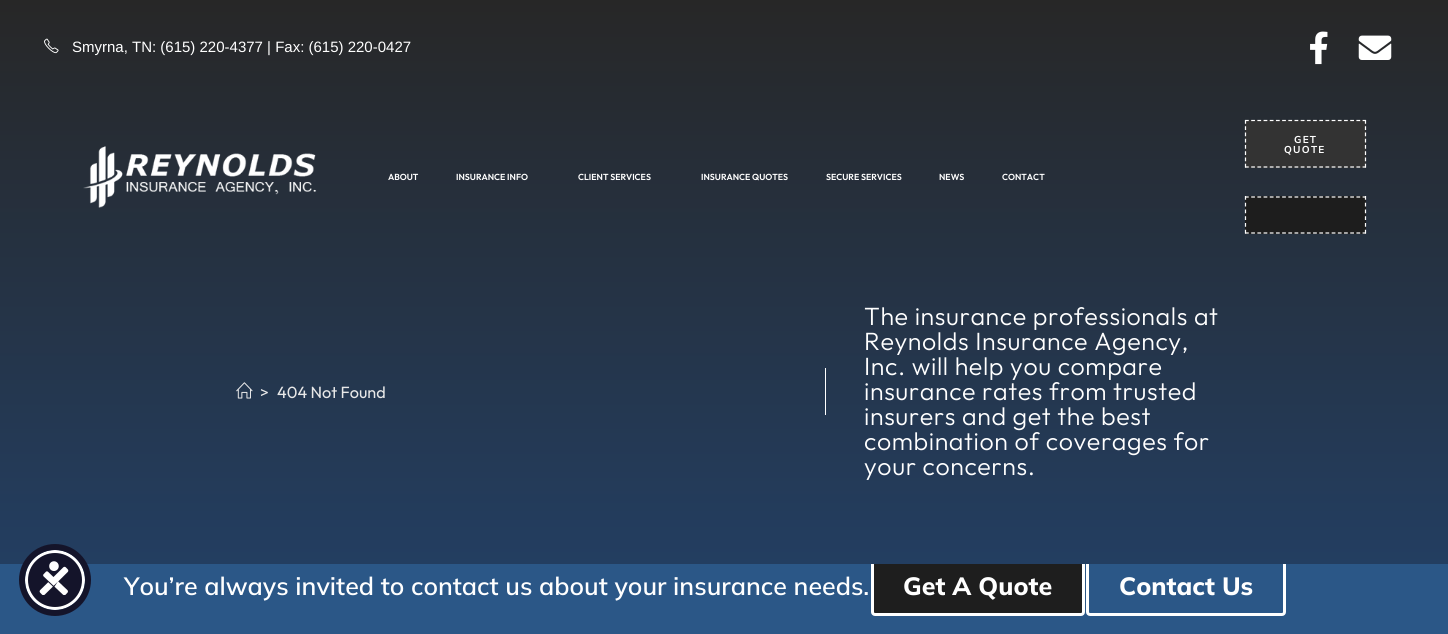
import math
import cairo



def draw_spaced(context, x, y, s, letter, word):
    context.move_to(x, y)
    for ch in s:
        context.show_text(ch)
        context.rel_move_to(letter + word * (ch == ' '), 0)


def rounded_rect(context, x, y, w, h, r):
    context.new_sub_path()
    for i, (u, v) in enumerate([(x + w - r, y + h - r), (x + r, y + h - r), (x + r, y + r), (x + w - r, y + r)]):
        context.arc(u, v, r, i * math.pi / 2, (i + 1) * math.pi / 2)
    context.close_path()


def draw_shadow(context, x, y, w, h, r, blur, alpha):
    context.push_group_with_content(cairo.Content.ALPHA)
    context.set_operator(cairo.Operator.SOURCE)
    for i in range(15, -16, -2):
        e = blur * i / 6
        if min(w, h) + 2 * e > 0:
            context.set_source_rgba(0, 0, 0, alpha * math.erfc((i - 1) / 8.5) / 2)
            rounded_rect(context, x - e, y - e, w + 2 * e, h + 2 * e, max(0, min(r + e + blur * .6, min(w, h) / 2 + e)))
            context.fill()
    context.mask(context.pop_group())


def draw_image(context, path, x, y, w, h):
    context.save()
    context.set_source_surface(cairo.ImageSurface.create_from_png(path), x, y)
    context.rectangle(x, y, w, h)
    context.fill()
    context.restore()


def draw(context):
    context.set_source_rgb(43 / 255, 87 / 255, 135 / 255)
    context.paint()
    context.set_source_rgb(30 / 255, 30 / 255, 30 / 255)
    rounded_rect(context, 872.5, 557.5, 211, 57, 2.5)
    context.fill_preserve()
    context.set_source_rgb(1, 1, 1)
    context.set_line_width(3)
    context.stroke()
    rounded_rect(context, 1087.5, 557.5, 197, 57, 2.5)
    context.stroke()
    gradient = cairo.LinearGradient(724, 564, 724, 0)
    gradient.add_color_stop_rgba(0, 35 / 255, 62 / 255, 97 / 255, 1)
    gradient.add_color_stop_rgba(1, 39 / 255, 39 / 255, 39 / 255, 1)
    context.set_source(gradient)
    context.rectangle(0, 0, 1448, 564)
    context.fill()
    context.set_source_rgb(93 / 255, 100 / 255, 148 / 255)
    draw_shadow(context, 25, 553, 60, 60, 30, 2.5, 0.2)
    context.set_source_rgb(20 / 255, 20 / 255, 42 / 255)
    context.arc(55, 580, 28.5, 0, 2 * math.pi)
    context.fill_preserve()
    context.set_source_rgb(1, 1, 1)
    context.stroke()
    context.arc(55, 580, 33, 0, 2 * math.pi)
    context.set_source_rgb(20 / 255, 20 / 255, 42 / 255)
    context.set_line_width(6)
    context.stroke()
    draw_image(context, "images/1.png", 39, 561, 30, 34)
    draw_image(context, "images/2.png", 44, 38, 15, 16)
    draw_image(context, "images/3.png", 1310, 31, 18, 34)
    draw_image(context, "images/4.png", 1358, 35, 34, 25)
    draw_image(context, "images/5.png", 83, 146, 234, 62)
    context.set_source_rgb(51 / 255, 51 / 255, 51 / 255)
    context.rectangle(1245, 120, 121, 48)
    context.fill()
    context.new_path()
    context.move_to(1245, 120.5)
    context.line_to(1366, 120.5)
    context.set_source_rgb(1, 1, 1)
    context.set_line_width(1.2)
    context.set_dash([3.75, 2.44])
    context.stroke()
    context.new_path()
    context.move_to(1365.5, 120)
    context.line_to(1365.5, 167.5)
    context.set_dash([3.75, 2.5])
    context.stroke()
    context.new_path()
    context.move_to(1245, 167)
    context.line_to(1366, 167)
    context.set_dash([3.75, 2.44])
    context.stroke()
    context.new_path()
    context.move_to(1245.5, 120)
    context.line_to(1245.5, 167.5)
    context.set_dash([3.75, 2.5])
    context.stroke()
    context.set_source_rgb(29 / 255, 29 / 255, 29 / 255)
    context.rectangle(1245, 196, 121, 38)
    context.fill()
    context.new_path()
    context.move_to(1245, 197)
    context.line_to(1366, 197)
    context.set_source_rgb(1, 1, 1)
    context.set_dash([3.75, 2.44])
    context.stroke()
    context.new_path()
    context.move_to(1365.5, 196)
    context.line_to(1365.5, 234)
    context.set_dash([3.75, 3])
    context.stroke()
    context.new_path()
    context.move_to(1245, 233)
    context.line_to(1366, 233)
    context.set_dash([3.75, 2.44])
    context.stroke()
    context.new_path()
    context.move_to(1245.5, 196)
    context.line_to(1245.5, 234)
    context.set_dash([3.75, 3])
    context.stroke()
    context.rectangle(825, 368, 1, 47)
    context.fill()
    draw_image(context, "images/6.png", 236, 382, 17, 17)
    context.select_font_face("Liberation Sans")
    context.set_font_size(15)
    context.move_to(72, 52)
    context.show_text("Smyrna, TN: (615) 220-4377 | Fax: (615) 220-0427")
    context.select_font_face("Outfit SemiBold")
    context.set_font_size(8.75)
    context.move_to(388, 180)
    context.show_text("ABOUT")
    context.move_to(456, 180)
    context.show_text("INSURANCE INFO")
    context.move_to(578, 180)
    context.show_text("CLIENT SERVICES")
    context.move_to(701, 180)
    context.show_text("INSURANCE QUOTES")
    context.move_to(826, 180)
    context.show_text("SECURE SERVICES")
    context.move_to(939, 180)
    context.show_text("NEWS")
    context.move_to(1002, 180)
    context.show_text("CONTACT")
    context.select_font_face("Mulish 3 ExtraLight")
    context.set_font_size(10)
    draw_spaced(context, 1294, 143, "GET", 1.25, 0)
    draw_spaced(context, 1284, 153, "QUOTE", 1.25, 0)
    context.select_font_face("Outfit")
    context.set_font_size(16.25)
    context.set_source_rgb(232 / 255, 232 / 255, 232 / 255)
    context.move_to(260, 398)
    context.show_text(">")
    context.move_to(277, 398)
    context.show_text("404 Not Found")
    context.select_font_face("Outfit Light")
    context.set_font_size(25)
    context.set_source_rgb(1, 1, 1)
    draw_spaced(context, 864, 325, "The insurance professionals at", 0.6, 0)
    draw_spaced(context, 864, 350, "Reynolds Insurance Agency,", 0.6, 0)
    draw_spaced(context, 864, 375, "Inc. will help you compare", 0.6, 0)
    draw_spaced(context, 864, 400, "insurance rates from trusted", 0.6, 0)
    draw_spaced(context, 864, 425, "insurers and get the best", 0.6, 0)
    draw_spaced(context, 864, 450, "combination of coverages for", 0.6, 0)
    draw_spaced(context, 864, 475, "your concerns.", 0.6, 0)
    context.select_font_face("Mulish ExtraLight")
    context.move_to(124, 595)
    context.show_text("You’re always invited to contact us about your insurance needs.")
    context.select_font_face("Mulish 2 ExtraLight")
    context.move_to(903, 595)
    context.show_text("Get A Quote")
    context.move_to(1119, 595)
    context.show_text("Contact Us")


surface = cairo.ImageSurface(cairo.Format.RGB24, 1448, 634)
context = cairo.Context(surface)
options = cairo.FontOptions()
options.set_hint_metrics(cairo.HintMetrics.OFF)
options.set_hint_style(cairo.HintStyle.NONE)
context.set_font_options(options)
context.set_miter_limit(4)
draw(context)
surface.write_to_png("out.png")
